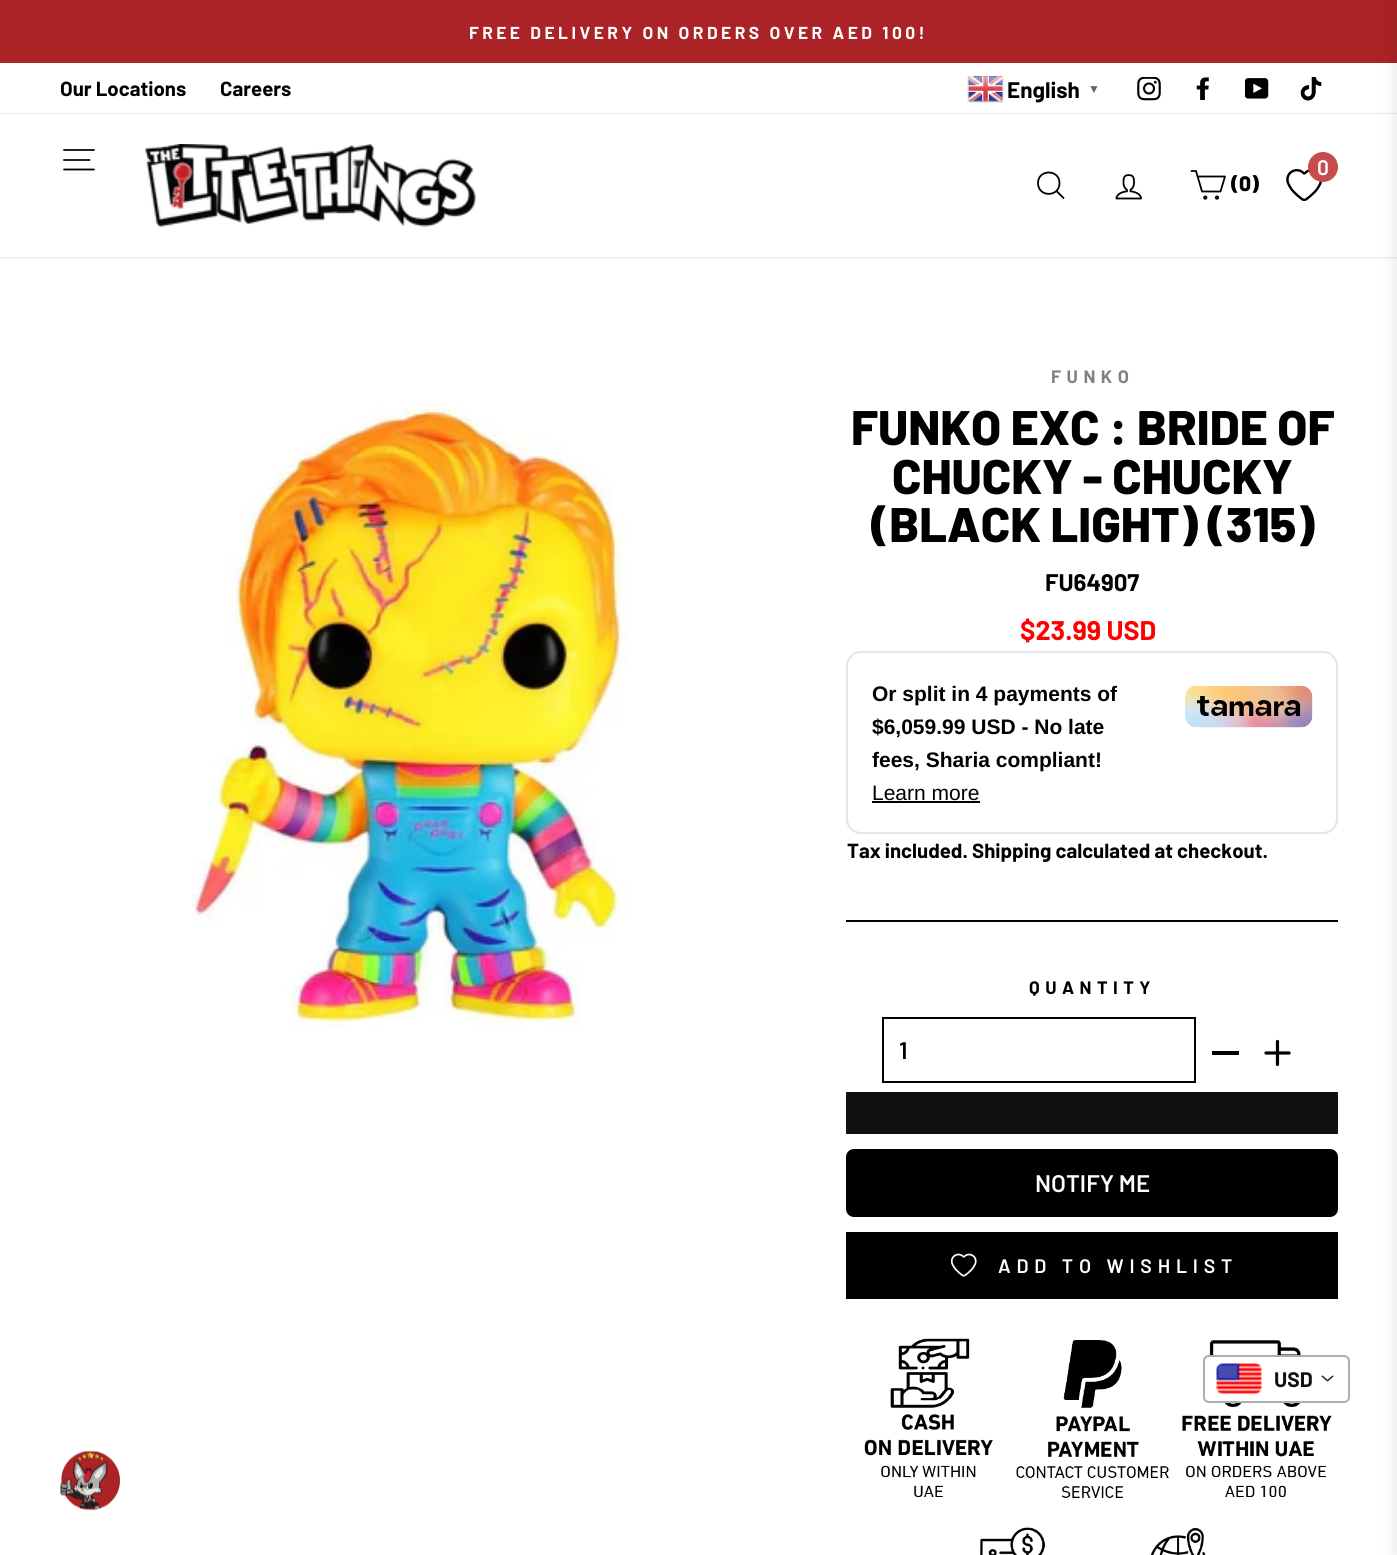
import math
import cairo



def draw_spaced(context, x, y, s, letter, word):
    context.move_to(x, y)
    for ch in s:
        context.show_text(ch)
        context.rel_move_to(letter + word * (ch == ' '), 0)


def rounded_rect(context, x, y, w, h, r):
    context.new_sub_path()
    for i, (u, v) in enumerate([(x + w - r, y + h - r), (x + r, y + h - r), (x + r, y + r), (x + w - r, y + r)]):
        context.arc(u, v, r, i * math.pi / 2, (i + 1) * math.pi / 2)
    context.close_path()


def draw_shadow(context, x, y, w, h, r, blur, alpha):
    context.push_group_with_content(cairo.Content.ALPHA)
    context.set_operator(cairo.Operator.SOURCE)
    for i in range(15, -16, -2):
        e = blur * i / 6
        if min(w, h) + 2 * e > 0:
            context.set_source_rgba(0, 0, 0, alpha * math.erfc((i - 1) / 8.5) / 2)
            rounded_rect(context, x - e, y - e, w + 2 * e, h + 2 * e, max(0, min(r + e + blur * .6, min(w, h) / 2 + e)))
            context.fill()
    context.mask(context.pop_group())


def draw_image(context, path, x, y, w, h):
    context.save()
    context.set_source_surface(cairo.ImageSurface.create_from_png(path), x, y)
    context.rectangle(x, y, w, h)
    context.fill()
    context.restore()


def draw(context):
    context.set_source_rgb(1, 1, 1)
    context.paint()
    draw_image(context, "images/1.png", 60, 1450, 60, 61)
    context.set_source_rgb(171 / 255, 35 / 255, 38 / 255)
    context.rectangle(0, 0, 1397, 63)
    context.fill()
    context.set_source_rgb(0, 0, 0)
    draw_shadow(context, 0, 114, 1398, 143, 0, 1, 0.2)
    context.set_source_rgb(1, 1, 1)
    context.rectangle(0, 114, 1397, 143)
    context.fill()
    context.set_source_rgb(0, 0, 0)
    draw_shadow(context, 1395, 0, 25, 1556, 0, 7.5, 0.1)
    draw_image(context, "images/2.png", 967, 75, 37, 28)
    draw_image(context, "images/3.png", 1137, 77, 24, 24)
    draw_image(context, "images/4.png", 1196, 77, 13, 23)
    draw_image(context, "images/5.png", 1245, 78, 24, 21)
    draw_image(context, "images/6.png", 1300, 77, 22, 24)
    context.new_path()
    context.move_to(64, 150)
    context.line_to(94, 150)
    context.move_to(64, 160)
    context.line_to(89.5, 160)
    context.move_to(64, 169.5)
    context.line_to(94, 169.5)
    context.set_source_rgb(0, 0, 0)
    context.set_line_width(1.8)
    context.set_line_cap(cairo.LineCap.ROUND)
    context.set_line_join(cairo.LineJoin.ROUND)
    context.stroke()
    draw_image(context, "images/7.png", 145, 144, 331, 83)
    draw_image(context, "images/8.png", 1286, 169, 37, 33)
    context.set_source_rgb(199 / 255, 77 / 255, 77 / 255)
    context.arc(1323, 167, 15, 0, 2 * math.pi)
    context.fill()
    context.new_path()
    context.move_to(1059.5, 183)
    context.curve_to(1059.5, 197.5, 1038, 197.5, 1038, 183)
    context.curve_to(1038, 169, 1059.5, 169, 1059.5, 183)
    context.close_path()
    context.move_to(1063.5, 198)
    context.line_to(1056.5, 191)
    context.set_source_rgb(0, 0, 0)
    context.stroke()
    draw_image(context, "images/9.png", 1115, 174, 27, 26)
    context.new_path()
    context.move_to(1197.5, 176.5)
    context.line_to(1225, 176.5)
    context.line_to(1220.5, 191.5)
    context.line_to(1202, 191.5)
    context.line_to(1196, 171)
    context.line_to(1191.5, 171)
    context.stroke()
    context.arc(1205.3, 197.6, 1.2, 0, 2 * math.pi)
    context.set_line_cap(cairo.LineCap.BUTT)
    context.set_line_join(cairo.LineJoin.MITER)
    context.stroke()
    context.arc(1217, 197.6, 1.2, 0, 2 * math.pi)
    context.stroke()
    draw_image(context, "images/10.png", 192, 406, 437, 621)
    rounded_rect(context, 847, 652, 490, 181, 14)
    context.set_source_rgb(229 / 255, 229 / 255, 229 / 255)
    context.set_line_width(2)
    context.stroke()
    draw_image(context, "images/11.png", 1185, 686, 128, 42)
    context.set_source_rgb(0, 0, 0)
    context.rectangle(872, 801, 108, 2)
    context.fill()
    context.rectangle(846, 920, 492, 2)
    context.fill()
    context.rectangle(883, 1018, 312, 64)
    context.stroke()
    context.rectangle(1212, 1051, 27, 4)
    context.fill()
    draw_image(context, "images/12.png", 1264, 1039, 27, 28)
    context.set_source_rgb(17 / 255, 17 / 255, 17 / 255)
    context.rectangle(846, 1092, 492, 42)
    context.fill()
    context.set_source_rgb(0, 0, 0)
    rounded_rect(context, 846, 1149, 492, 68, 8)
    context.fill()
    context.rectangle(846, 1232, 492, 67)
    context.fill()
    draw_image(context, "images/13.png", 950, 1253, 27, 24)
    draw_image(context, "images/14.png", 864, 1338, 129, 159)
    draw_image(context, "images/15.png", 1016, 1340, 153, 158)
    draw_image(context, "images/16.png", 1182, 1340, 150, 157)
    draw_image(context, "images/17.png", 980, 1527, 65, 28)
    draw_image(context, "images/18.png", 1150, 1527, 56, 28)
    context.set_source_rgb(1, 1, 1)
    rounded_rect(context, 1204, 1356, 145, 46, 5)
    context.fill_preserve()
    context.set_source_rgb(174 / 255, 174 / 255, 174 / 255)
    context.stroke()
    draw_image(context, "images/19.png", 1216, 1363, 46, 31)
    draw_image(context, "images/20.png", 1321, 1375, 13, 7)
    context.select_font_face("Barlow", cairo.FontSlant.NORMAL, cairo.FontWeight.BOLD)
    context.set_font_size(17.35)
    context.set_source_rgb(1, 1, 1)
    draw_spaced(context, 469, 39, "FREE DELIVERY ON ORDERS OVER AED 100!", 3.45, 0)
    context.set_font_size(20.4)
    context.set_source_rgb(0, 0, 0)
    context.move_to(60, 96)
    context.show_text("Our Locations")
    context.move_to(220, 96)
    context.show_text("Careers")
    context.set_font_size(22.5)
    context.move_to(1007, 98)
    context.show_text("English")
    context.select_font_face("Liberation Sans", cairo.FontSlant.NORMAL, cairo.FontWeight.BOLD)
    context.set_font_size(12)
    context.set_source_rgb(102 / 255, 102 / 255, 102 / 255)
    context.move_to(1088, 93)
    context.show_text("▼")
    context.select_font_face("Barlow SemiBold")
    context.set_font_size(21)
    context.set_source_rgb(1, 1, 1)
    context.move_to(1317, 175)
    context.show_text("0")
    context.select_font_face("Barlow ExtraBold")
    context.set_source_rgb(0, 0, 0)
    context.move_to(1231, 191)
    context.show_text("(0)")
    context.select_font_face("Barlow", cairo.FontSlant.NORMAL, cairo.FontWeight.BOLD)
    context.set_font_size(18)
    context.set_source_rgb(128 / 255, 128 / 255, 128 / 255)
    draw_spaced(context, 1051, 383, "FUNKO", 5.5, 0)
    context.select_font_face("Barlow ExtraBold")
    context.set_font_size(48.5)
    context.set_source_rgb(0, 0, 0)
    context.move_to(851, 445)
    context.show_text("FUNKO EXC : BRIDE OF")
    context.move_to(892, 494)
    context.show_text("CHUCKY - CHUCKY")
    context.move_to(871, 542)
    context.show_text("(BLACK LIGHT) (315)")
    context.select_font_face("Barlow", cairo.FontSlant.NORMAL, cairo.FontWeight.BOLD)
    context.set_font_size(24)
    context.move_to(1045, 591)
    context.show_text("FU64907")
    context.set_font_size(27)
    context.set_source_rgb(1, 0, 0)
    context.move_to(1020, 640)
    context.show_text("$23.99 USD")
    context.select_font_face("Liberation Sans", cairo.FontSlant.NORMAL, cairo.FontWeight.BOLD)
    context.set_font_size(21)
    context.set_source_rgb(0, 0, 0)
    context.move_to(872, 701)
    context.show_text("Or split in 4 payments of")
    context.move_to(872, 734)
    context.show_text("$6,059.99 USD - No late")
    context.move_to(872, 767)
    context.show_text("fees, Sharia compliant!")
    context.select_font_face("Liberation Sans")
    context.move_to(872, 800)
    context.show_text("Learn more")
    context.select_font_face("Barlow", cairo.FontSlant.NORMAL, cairo.FontWeight.BOLD)
    context.set_font_size(20.4)
    context.move_to(847, 858)
    context.show_text("Tax included. Shipping calculated at checkout.")
    context.set_font_size(18)
    draw_spaced(context, 1029, 994, "QUANTITY", 5.5, 0)
    context.select_font_face("Barlow SemiBold")
    context.set_font_size(24)
    context.move_to(899, 1059)
    context.show_text("1")
    context.set_source_rgb(1, 1, 1)
    context.move_to(1035, 1192)
    context.show_text("NOTIFY ME")
    context.set_font_size(19.5)
    draw_spaced(context, 998, 1273, "ADD TO WISHLIST", 5.8, 0)
    context.select_font_face("Barlow", cairo.FontSlant.NORMAL, cairo.FontWeight.BOLD)
    context.set_font_size(21)
    context.set_source_rgb(17 / 255, 17 / 255, 17 / 255)
    context.move_to(1274, 1387)
    context.show_text("USD")


surface = cairo.ImageSurface(cairo.Format.RGB24, 1397, 1555)
context = cairo.Context(surface)
options = cairo.FontOptions()
options.set_hint_metrics(cairo.HintMetrics.OFF)
options.set_hint_style(cairo.HintStyle.NONE)
context.set_font_options(options)
context.set_miter_limit(4)
draw(context)
surface.write_to_png("out.png")
